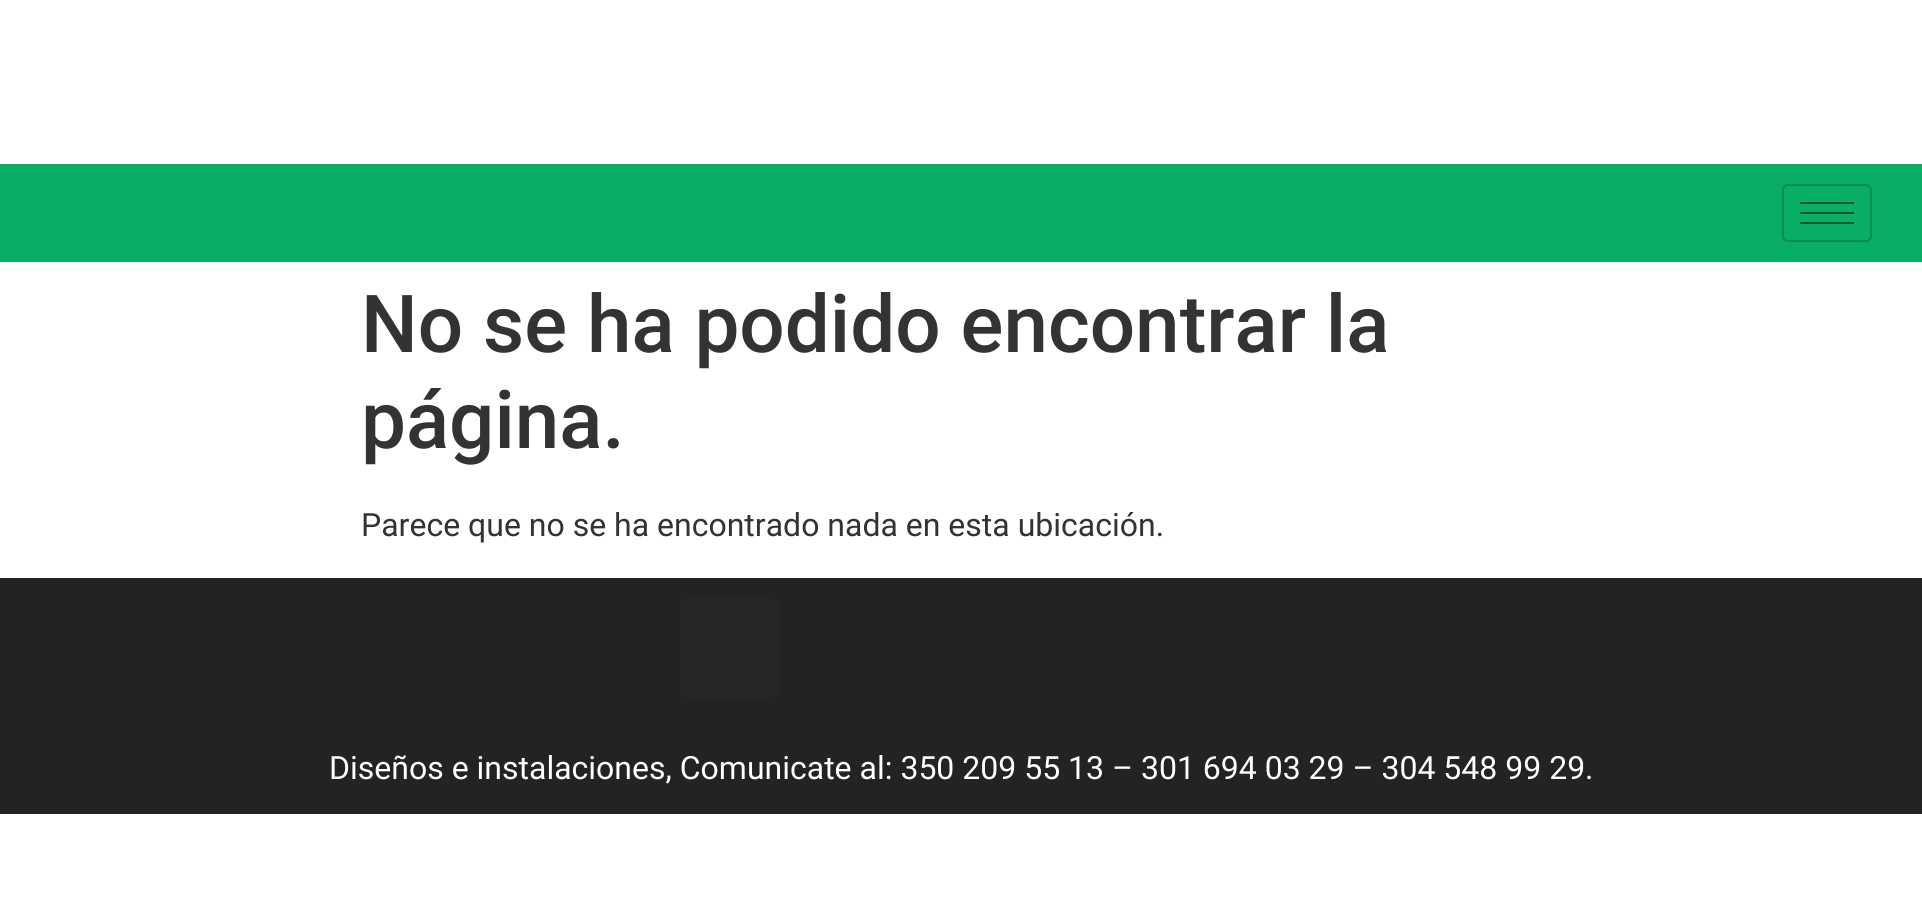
import math
import cairo



def rounded_rect(context, x, y, w, h, r):
    context.new_sub_path()
    for i, (u, v) in enumerate([(x + w - r, y + h - r), (x + r, y + h - r), (x + r, y + r), (x + w - r, y + r)]):
        context.arc(u, v, r, i * math.pi / 2, (i + 1) * math.pi / 2)
    context.close_path()


def draw(context):
    context.set_source_rgb(1, 1, 1)
    context.paint()
    context.set_source_rgb(8 / 255, 174 / 255, 100 / 255)
    context.rectangle(0, 164, 1922, 98)
    context.fill()
    rounded_rect(context, 1783, 185, 88, 56, 5)
    context.set_source_rgb(6 / 255, 139 / 255, 80 / 255)
    context.stroke()
    context.set_source_rgb(4 / 255, 87 / 255, 50 / 255)
    context.rectangle(1800, 202, 54, 2)
    context.fill()
    context.rectangle(1800, 212, 54, 2)
    context.fill()
    context.rectangle(1800, 222, 54, 2)
    context.fill()
    context.set_source_rgb(35 / 255, 35 / 255, 35 / 255)
    context.rectangle(0, 578, 1922, 236)
    context.fill()
    context.set_source_rgb(38 / 255, 38 / 255, 38 / 255)
    rounded_rect(context, 680, 598, 100, 100, 10)
    context.fill()
    context.select_font_face("Roboto Medium")
    context.set_font_size(80)
    context.set_source_rgb(51 / 255, 51 / 255, 51 / 255)
    context.move_to(361, 352)
    context.show_text("No se ha podido encontrar la")
    context.move_to(361, 448)
    context.show_text("página.")
    context.select_font_face("Roboto")
    context.set_font_size(32)
    context.move_to(361, 536)
    context.show_text("Parece que no se ha encontrado nada en esta ubicación.")
    context.set_source_rgb(1, 1, 1)
    context.move_to(329, 779)
    context.show_text("Diseños e instalaciones, Comunicate al: 350 209 55 13 – 301 694 03 29 – 304 548 99 29.")


surface = cairo.ImageSurface(cairo.Format.RGB24, 1922, 918)
context = cairo.Context(surface)
options = cairo.FontOptions()
options.set_hint_metrics(cairo.HintMetrics.OFF)
options.set_hint_style(cairo.HintStyle.NONE)
context.set_font_options(options)
context.set_miter_limit(4)
draw(context)
surface.write_to_png("out.png")
